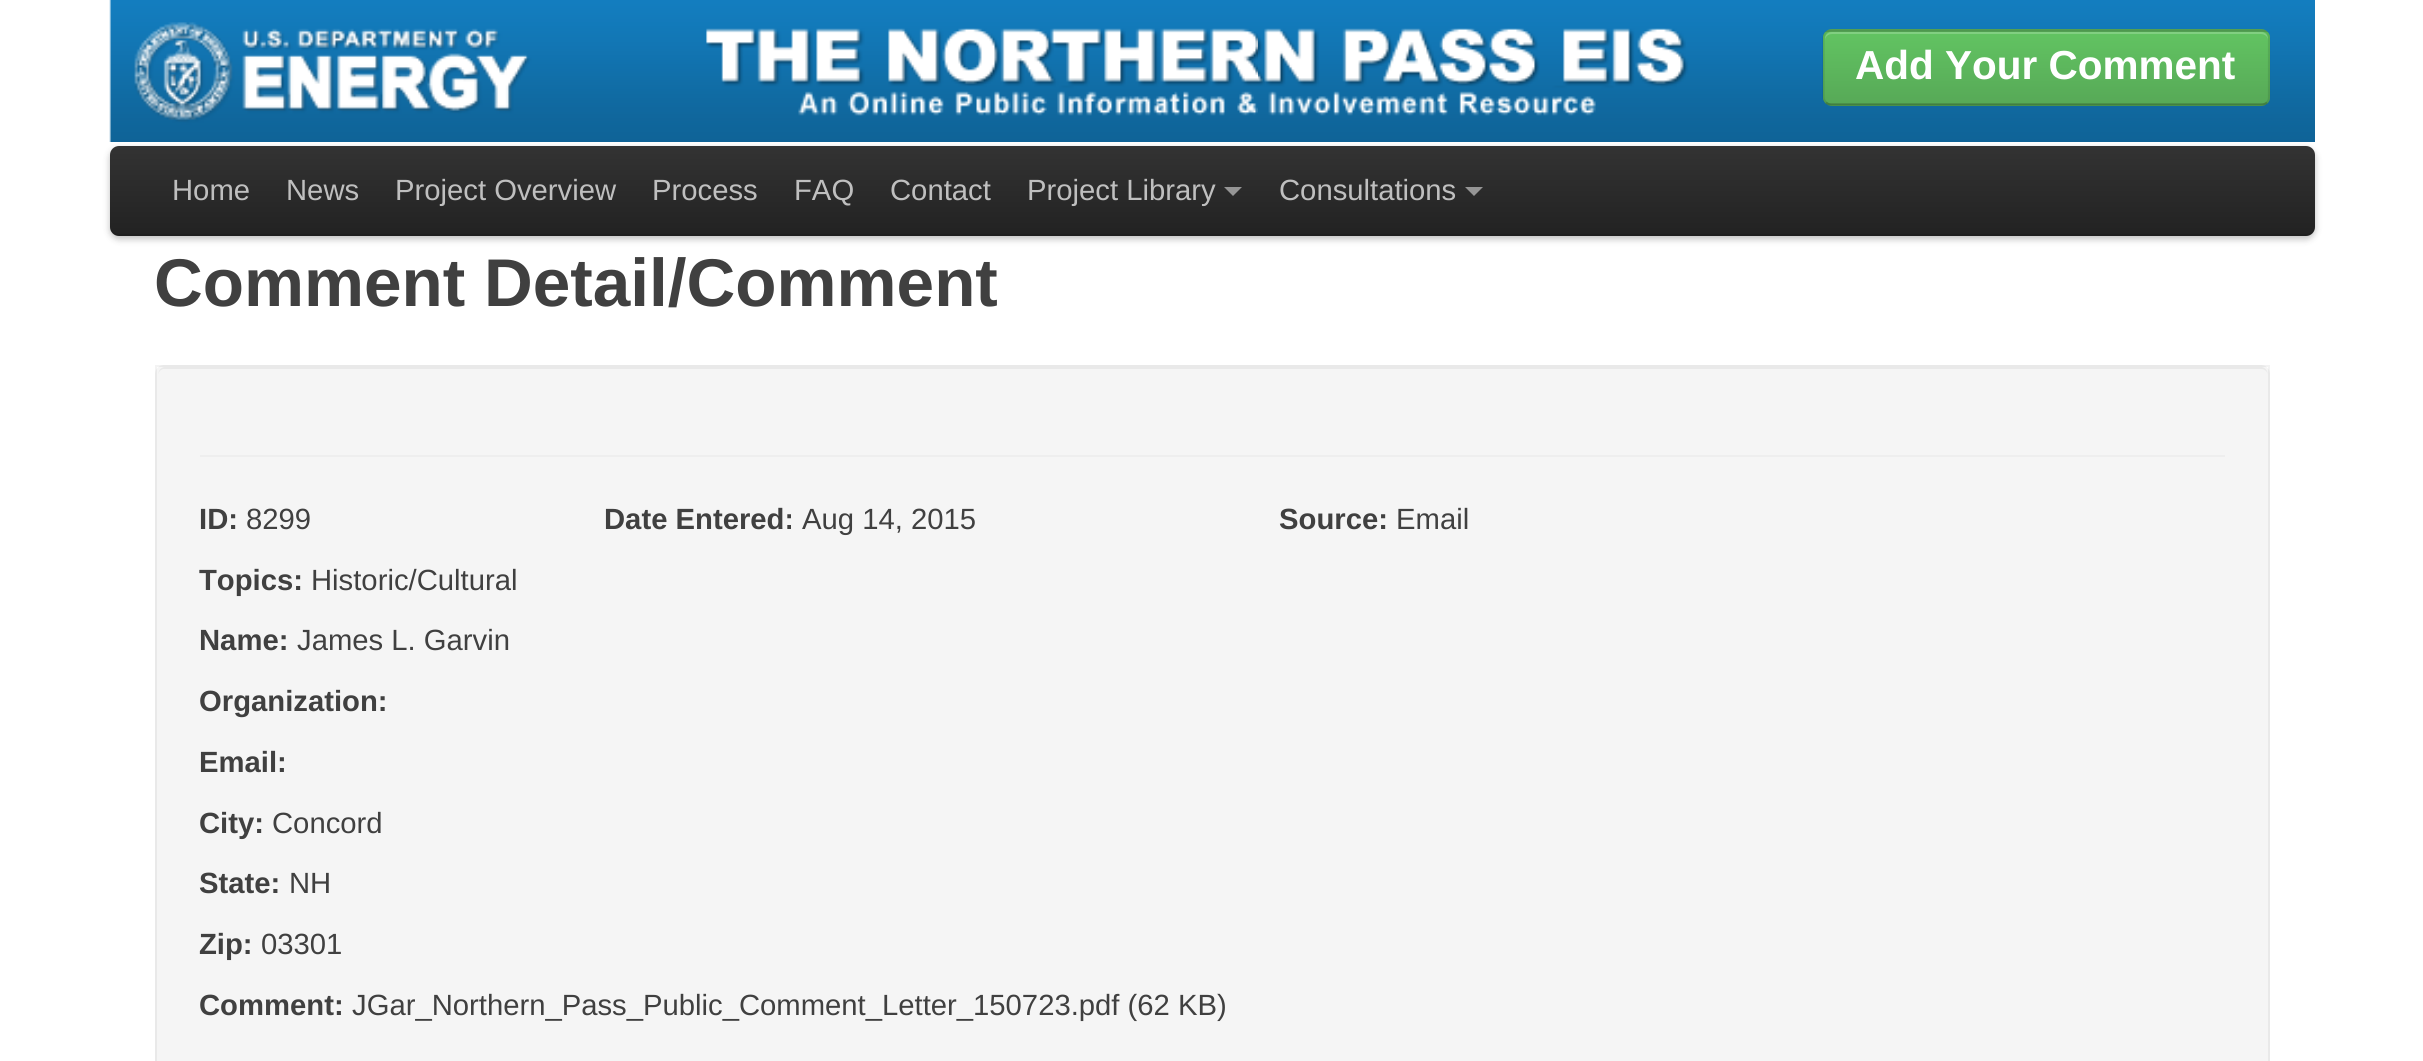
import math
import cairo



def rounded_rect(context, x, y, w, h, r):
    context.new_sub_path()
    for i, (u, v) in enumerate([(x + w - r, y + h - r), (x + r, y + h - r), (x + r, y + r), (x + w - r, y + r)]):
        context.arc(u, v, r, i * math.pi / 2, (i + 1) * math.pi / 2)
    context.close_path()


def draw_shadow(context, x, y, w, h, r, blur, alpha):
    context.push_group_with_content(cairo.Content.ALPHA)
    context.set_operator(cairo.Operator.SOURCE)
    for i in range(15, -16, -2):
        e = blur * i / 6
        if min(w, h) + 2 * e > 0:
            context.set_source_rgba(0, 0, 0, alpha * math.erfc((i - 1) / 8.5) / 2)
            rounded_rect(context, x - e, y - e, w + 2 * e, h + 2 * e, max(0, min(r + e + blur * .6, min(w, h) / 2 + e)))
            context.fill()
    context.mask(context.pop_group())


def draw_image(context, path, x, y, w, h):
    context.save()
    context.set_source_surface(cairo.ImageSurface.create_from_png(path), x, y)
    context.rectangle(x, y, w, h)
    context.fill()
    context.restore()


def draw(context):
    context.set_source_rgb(1, 1, 1)
    context.paint()
    draw_image(context, "images/1.png", 109, 0, 2206, 142)
    context.set_source_rgb(87 / 255, 169 / 255, 87 / 255)
    rounded_rect(context, 1823, 29, 447, 77, 9)
    context.fill()
    context.save()
    rounded_rect(context, 1823, 29, 447, 77, 9)
    context.clip()
    gradient = cairo.LinearGradient(2046, 31, 2046, 104)
    gradient.add_color_stop_rgba(0, 98 / 255, 196 / 255, 98 / 255, 1)
    gradient.add_color_stop_rgba(1, 87 / 255, 169 / 255, 87 / 255, 1)
    context.set_source(gradient)
    context.rectangle(1823, 32, 447, 72)
    context.fill()
    context.restore()
    context.set_source_rgb(129 / 255, 207 / 255, 129 / 255)
    context.new_path()
    context.move_to(1832, 34)
    context.line_to(2261, 34)
    context.curve_to(2265, 34, 2268, 37, 2268, 40)
    context.line_to(2268, 39)
    context.curve_to(2268, 35, 2265, 32, 2261, 32)
    context.line_to(1832, 32)
    context.curve_to(1828, 32, 1825, 35, 1825, 39)
    context.line_to(1825, 40)
    context.curve_to(1825, 37, 1828, 34, 1832, 34)
    context.close_path()
    context.fill()
    context.new_path()
    context.move_to(2267, 102.5)
    context.curve_to(2265.5, 104, 2263.5, 104.5, 2261, 104.5)
    context.line_to(1831.5, 104.5)
    context.curve_to(1829.5, 104.5, 1827.5, 104, 1826, 102.5)
    context.set_source_rgba(0, 0, 0, 0.25)
    context.set_line_width(2.2)
    context.stroke()
    context.new_path()
    context.move_to(1826, 102.5)
    context.curve_to(1824.5, 101, 1823.5, 99, 1823.5, 97)
    context.line_to(1823.5, 38)
    context.curve_to(1823.5, 36, 1824.5, 34, 1826, 32.5)
    context.curve_to(1827.5, 31, 1829.5, 30.5, 1831.5, 30.5)
    context.line_to(2261, 30.5)
    context.curve_to(2263.5, 30.5, 2265.5, 31, 2267, 32.5)
    context.curve_to(2268.5, 34, 2269, 36, 2269, 38)
    context.line_to(2269, 97)
    context.curve_to(2269, 99, 2268.5, 101, 2267, 102.5)
    context.set_source_rgba(0, 0, 0, 0.1)
    context.stroke()
    context.set_source_rgb(0, 0, 0)
    draw_shadow(context, 110, 149, 2205, 90, 9, 3.5, 0.25)
    gradient = cairo.LinearGradient(1213, 146, 1213, 236)
    gradient.add_color_stop_rgba(0, 51 / 255, 51 / 255, 51 / 255, 1)
    gradient.add_color_stop_rgba(1, 34 / 255, 34 / 255, 34 / 255, 1)
    context.set_source(gradient)
    rounded_rect(context, 110, 146, 2205, 90, 9)
    context.fill()
    context.set_source_rgba(0, 0, 0, 0.1)
    context.new_path()
    context.move_to(110, 225)
    context.curve_to(110, 231, 113, 236, 119, 236)
    context.line_to(2306, 236)
    context.curve_to(2312, 236, 2315, 231, 2315, 225)
    context.curve_to(2315, 230, 2311, 234, 2306, 234)
    context.line_to(119, 234)
    context.curve_to(114, 234, 110, 230, 110, 225)
    context.close_path()
    context.fill()
    context.set_source_rgb(149 / 255, 149 / 255, 149 / 255)
    context.new_path()
    context.move_to(1224, 187)
    context.line_to(1242, 187)
    context.line_to(1233, 196)
    context.close_path()
    context.fill()
    context.new_path()
    context.move_to(1465, 187)
    context.line_to(1483, 187)
    context.line_to(1474, 196)
    context.close_path()
    context.fill()
    context.set_source_rgb(245 / 255, 245 / 255, 245 / 255)
    rounded_rect(context, 155, 365, 2115, 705, 9)
    context.fill()
    context.set_source_rgb(233 / 255, 233 / 255, 233 / 255)
    context.new_path()
    context.move_to(164, 369)
    context.line_to(2261, 369)
    context.curve_to(2265, 369, 2268, 372, 2268, 376)
    context.curve_to(2268, 372, 2266, 367, 2261, 367)
    context.line_to(165, 367)
    context.curve_to(160, 367, 158, 372, 158, 376)
    context.curve_to(158, 372, 161, 369, 164, 369)
    context.close_path()
    context.fill()
    context.rectangle(156, 366, 2113, 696)
    context.set_source_rgba(0, 0, 0, 0.05)
    context.set_line_width(2)
    context.stroke()
    context.set_source_rgb(238 / 255, 238 / 255, 238 / 255)
    context.rectangle(200, 455, 2025, 2)
    context.fill()
    context.select_font_face("Liberation Sans", cairo.FontSlant.NORMAL, cairo.FontWeight.BOLD)
    context.set_font_size(40.5)
    context.set_source_rgb(1, 1, 1)
    context.move_to(1855, 79)
    context.show_text("Add Your Comment")
    context.select_font_face("Liberation Sans")
    context.set_font_size(29.25)
    context.set_source_rgb(191 / 255, 191 / 255, 191 / 255)
    context.move_to(172, 200)
    context.show_text("Home")
    context.move_to(286, 200)
    context.show_text("News")
    context.move_to(395, 200)
    context.show_text("Project Overview")
    context.move_to(652, 200)
    context.show_text("Process")
    context.move_to(794, 200)
    context.show_text("FAQ")
    context.move_to(890, 200)
    context.show_text("Contact")
    context.move_to(1027, 200)
    context.show_text("Project Library")
    context.move_to(1279, 200)
    context.show_text("Consultations")
    context.select_font_face("Liberation Sans", cairo.FontSlant.NORMAL, cairo.FontWeight.BOLD)
    context.set_font_size(67.5)
    context.set_source_rgb(64 / 255, 64 / 255, 64 / 255)
    context.move_to(154, 306)
    context.show_text("Comment Detail/Comment")
    context.set_font_size(29.25)
    context.move_to(199, 529)
    context.show_text("ID:")
    context.select_font_face("Liberation Sans")
    context.move_to(246, 529)
    context.show_text("8299")
    context.select_font_face("Liberation Sans", cairo.FontSlant.NORMAL, cairo.FontWeight.BOLD)
    context.move_to(604, 529)
    context.show_text("Date Entered:")
    context.select_font_face("Liberation Sans")
    context.move_to(802, 529)
    context.show_text("Aug 14, 2015")
    context.select_font_face("Liberation Sans", cairo.FontSlant.NORMAL, cairo.FontWeight.BOLD)
    context.move_to(1279, 529)
    context.show_text("Source:")
    context.select_font_face("Liberation Sans")
    context.move_to(1396, 529)
    context.show_text("Email")
    context.select_font_face("Liberation Sans", cairo.FontSlant.NORMAL, cairo.FontWeight.BOLD)
    context.move_to(199, 590)
    context.show_text("Topics:")
    context.select_font_face("Liberation Sans")
    context.move_to(311, 590)
    context.show_text("Historic/Cultural")
    context.select_font_face("Liberation Sans", cairo.FontSlant.NORMAL, cairo.FontWeight.BOLD)
    context.move_to(199, 650)
    context.show_text("Name:")
    context.select_font_face("Liberation Sans")
    context.move_to(297, 650)
    context.show_text("James L. Garvin")
    context.select_font_face("Liberation Sans", cairo.FontSlant.NORMAL, cairo.FontWeight.BOLD)
    context.move_to(199, 711)
    context.show_text("Organization:")
    context.move_to(199, 772)
    context.show_text("Email:")
    context.move_to(199, 833)
    context.show_text("City:")
    context.select_font_face("Liberation Sans")
    context.move_to(272, 833)
    context.show_text("Concord")
    context.select_font_face("Liberation Sans", cairo.FontSlant.NORMAL, cairo.FontWeight.BOLD)
    context.move_to(199, 893)
    context.show_text("State:")
    context.select_font_face("Liberation Sans")
    context.move_to(289, 893)
    context.show_text("NH")
    context.select_font_face("Liberation Sans", cairo.FontSlant.NORMAL, cairo.FontWeight.BOLD)
    context.move_to(199, 954)
    context.show_text("Zip:")
    context.select_font_face("Liberation Sans")
    context.move_to(261, 954)
    context.show_text("03301")
    context.select_font_face("Liberation Sans", cairo.FontSlant.NORMAL, cairo.FontWeight.BOLD)
    context.move_to(199, 1015)
    context.show_text("Comment:")
    context.select_font_face("Liberation Sans")
    context.move_to(352, 1015)
    context.show_text("JGar_Northern_Pass_Public_Comment_Letter_150723.pdf (62 KB)")


surface = cairo.ImageSurface(cairo.Format.RGB24, 2423, 1061)
context = cairo.Context(surface)
options = cairo.FontOptions()
options.set_hint_metrics(cairo.HintMetrics.OFF)
options.set_hint_style(cairo.HintStyle.NONE)
context.set_font_options(options)
context.set_miter_limit(4)
draw(context)
surface.write_to_png("out.png")
